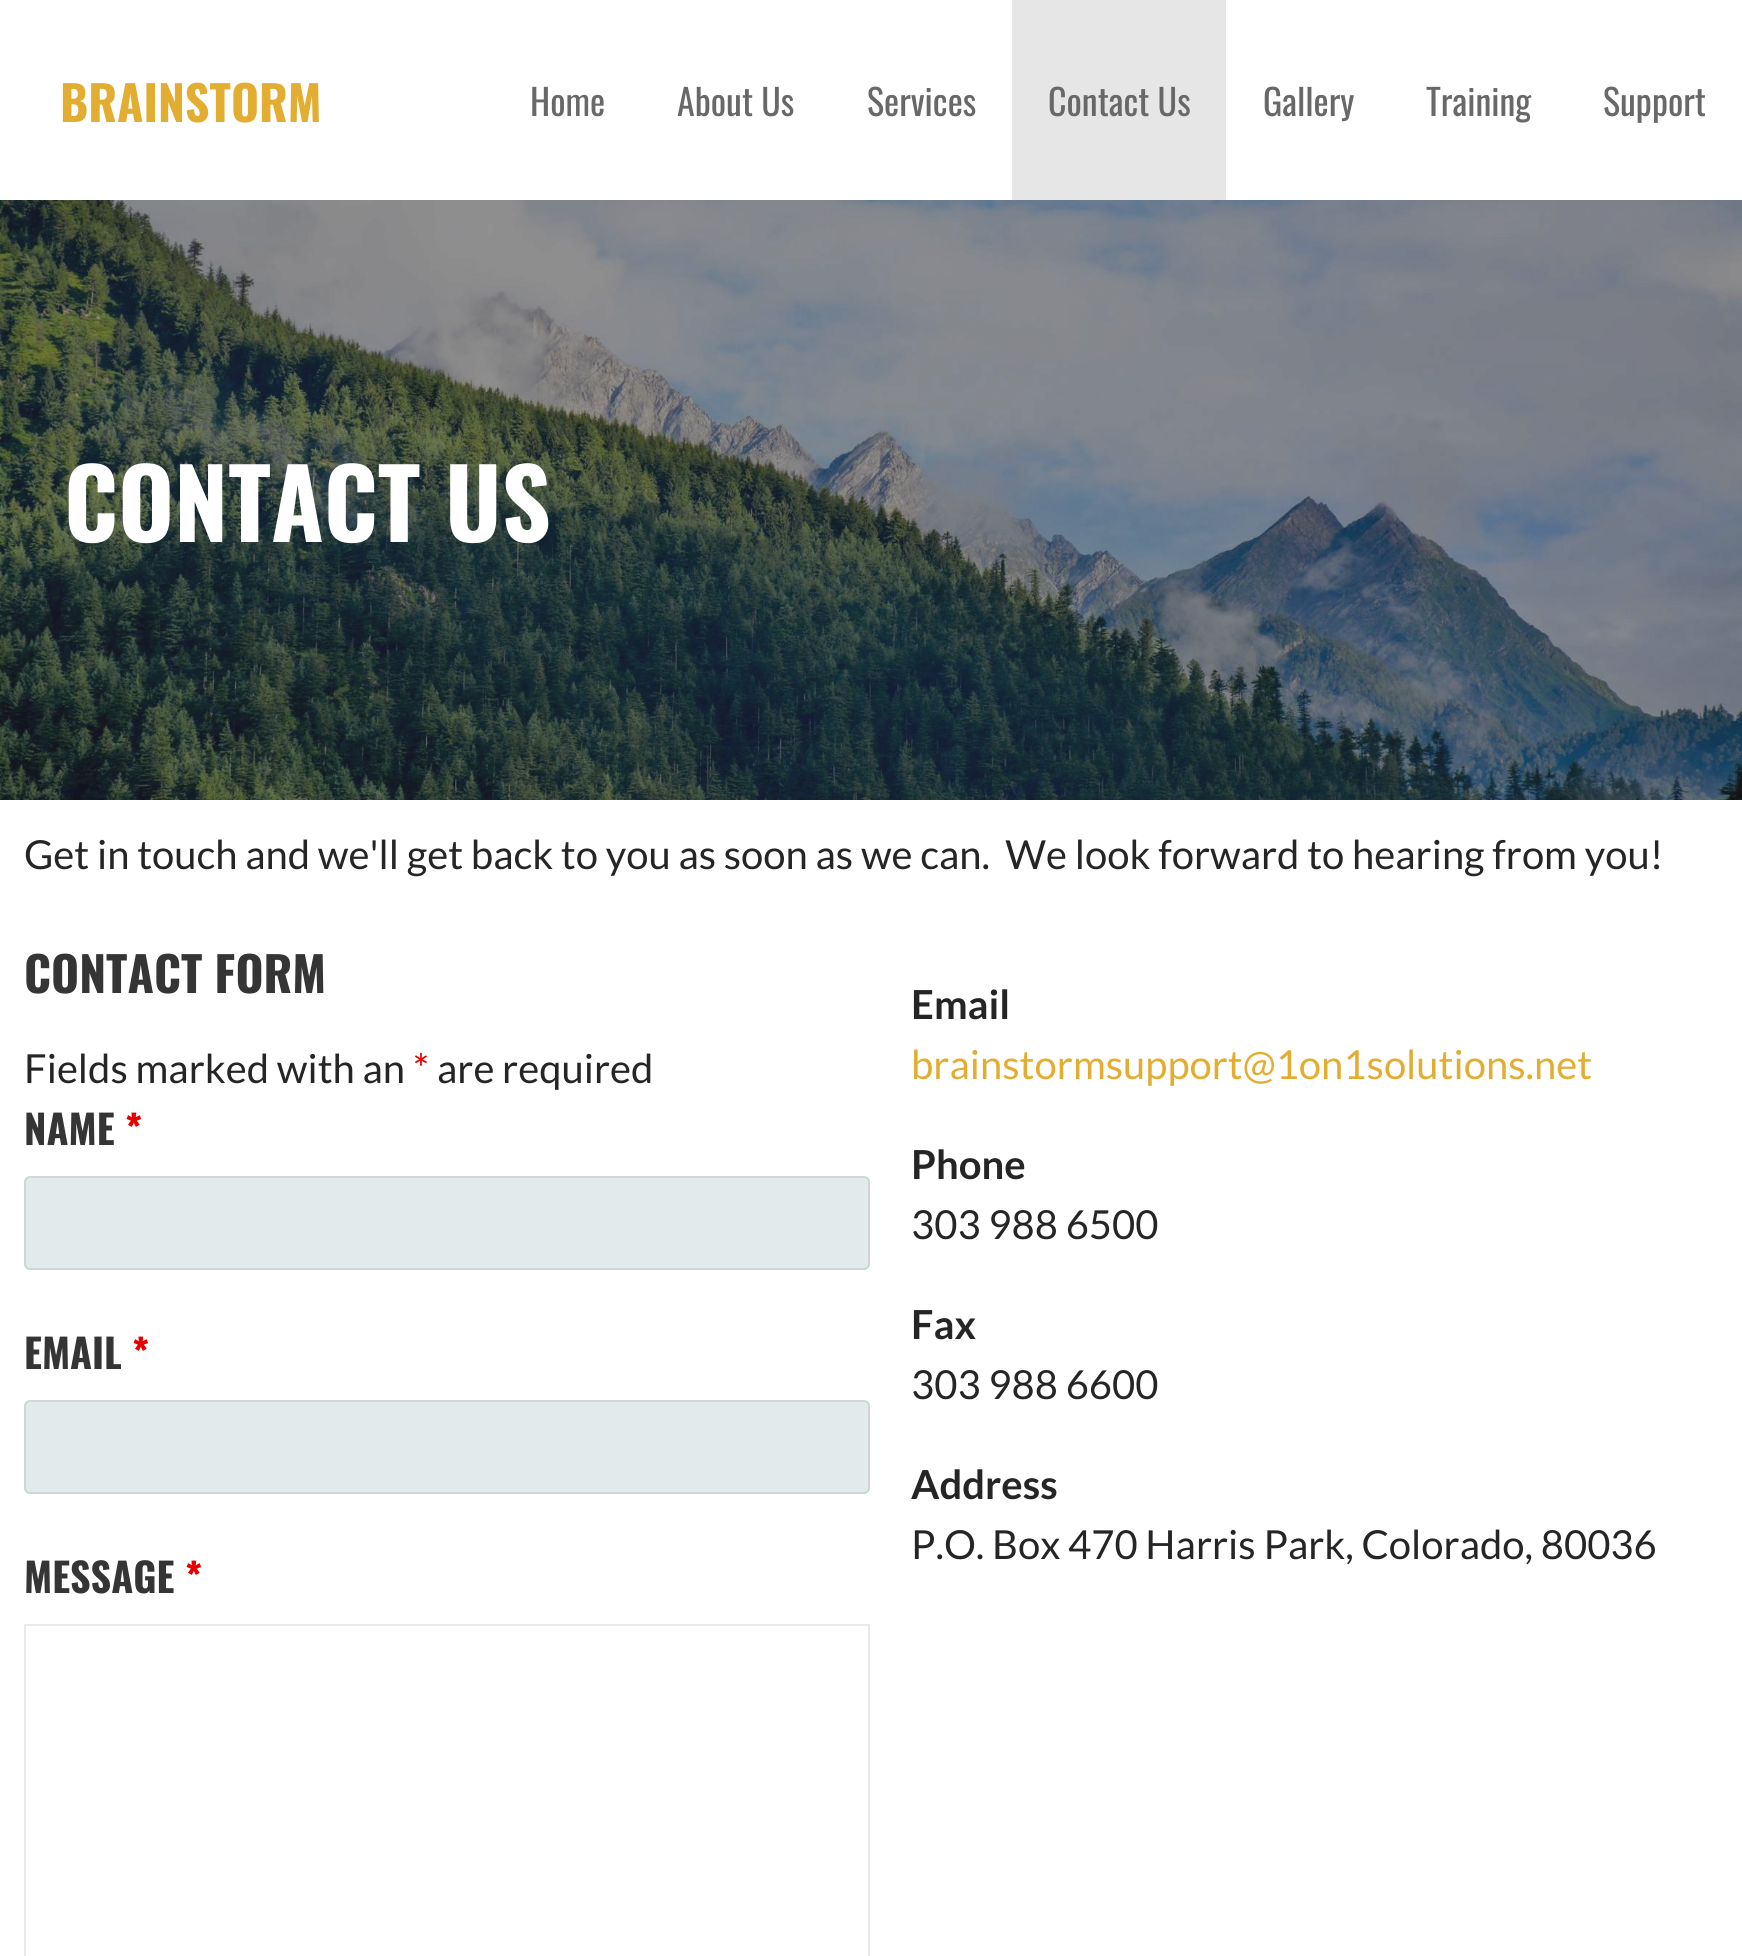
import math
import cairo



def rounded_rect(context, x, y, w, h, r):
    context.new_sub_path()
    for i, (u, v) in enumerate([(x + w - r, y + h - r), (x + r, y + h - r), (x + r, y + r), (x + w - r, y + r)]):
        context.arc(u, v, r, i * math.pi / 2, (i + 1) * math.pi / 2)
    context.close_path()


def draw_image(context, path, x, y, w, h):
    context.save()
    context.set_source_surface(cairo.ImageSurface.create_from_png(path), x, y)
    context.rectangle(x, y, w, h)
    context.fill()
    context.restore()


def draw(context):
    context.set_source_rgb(1, 1, 1)
    context.paint()
    context.set_source_rgb(230 / 255, 230 / 255, 230 / 255)
    context.rectangle(1012, 0, 214, 200)
    context.fill()
    draw_image(context, "images/1.png", 0, 200, 1742, 600)
    context.set_source_rgb(227 / 255, 234 / 255, 235 / 255)
    rounded_rect(context, 24, 1176, 846, 94, 6)
    context.fill()
    rounded_rect(context, 25, 1177, 844, 92, 5)
    context.set_source_rgba(37 / 255, 37 / 255, 37 / 255, 0.1)
    context.stroke()
    context.set_source_rgb(227 / 255, 234 / 255, 235 / 255)
    rounded_rect(context, 24, 1400, 846, 94, 6)
    context.fill()
    rounded_rect(context, 25, 1401, 844, 92, 5)
    context.set_source_rgba(37 / 255, 37 / 255, 37 / 255, 0.1)
    context.stroke()
    context.rectangle(25, 1625, 844, 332)
    context.set_source_rgb(233 / 255, 233 / 255, 233 / 255)
    context.stroke()
    context.select_font_face("Oswald", cairo.FontSlant.NORMAL, cairo.FontWeight.BOLD)
    context.set_font_size(48)
    context.set_source_rgb(227 / 255, 173 / 255, 49 / 255)
    context.move_to(60, 122)
    context.show_text("BRAINSTORM")
    context.select_font_face("Oswald")
    context.set_font_size(36)
    context.set_source_rgb(104 / 255, 104 / 255, 104 / 255)
    context.move_to(530, 116)
    context.show_text("Home")
    context.move_to(677, 116)
    context.show_text("About Us")
    context.move_to(867, 116)
    context.show_text("Services")
    context.move_to(1048, 116)
    context.show_text("Contact Us")
    context.move_to(1263, 116)
    context.show_text("Gallery")
    context.move_to(1426, 116)
    context.show_text("Training")
    context.move_to(1603, 116)
    context.show_text("Support")
    context.select_font_face("Oswald", cairo.FontSlant.NORMAL, cairo.FontWeight.BOLD)
    context.set_font_size(96)
    context.set_source_rgb(1, 1, 1)
    context.move_to(64, 542)
    context.show_text("CONTACT US")
    context.select_font_face("Lato")
    context.set_font_size(40)
    context.set_source_rgb(37 / 255, 37 / 255, 37 / 255)
    context.move_to(24, 869)
    context.show_text("Get in touch and we'll get back to you as soon as we can.  We look forward to hearing from you!")
    context.select_font_face("Oswald", cairo.FontSlant.NORMAL, cairo.FontWeight.BOLD)
    context.set_font_size(48)
    context.set_source_rgb(53 / 255, 53 / 255, 53 / 255)
    context.move_to(24, 993)
    context.show_text("CONTACT FORM")
    context.select_font_face("Lato")
    context.set_font_size(40)
    context.set_source_rgb(37 / 255, 37 / 255, 37 / 255)
    context.move_to(24, 1083)
    context.show_text("Fields marked with an")
    context.set_source_rgb(232 / 255, 0, 0)
    context.move_to(413, 1083)
    context.show_text("*")
    context.set_source_rgb(37 / 255, 37 / 255, 37 / 255)
    context.move_to(437, 1083)
    context.show_text("are required")
    context.select_font_face("Oswald", cairo.FontSlant.NORMAL, cairo.FontWeight.BOLD)
    context.set_source_rgb(53 / 255, 53 / 255, 53 / 255)
    context.move_to(24, 1145)
    context.show_text("NAME")
    context.set_source_rgb(232 / 255, 0, 0)
    context.move_to(125, 1145)
    context.show_text("*")
    context.set_source_rgb(53 / 255, 53 / 255, 53 / 255)
    context.move_to(24, 1369)
    context.show_text("EMAIL")
    context.set_source_rgb(232 / 255, 0, 0)
    context.move_to(132, 1369)
    context.show_text("*")
    context.set_source_rgb(53 / 255, 53 / 255, 53 / 255)
    context.move_to(24, 1593)
    context.show_text("MESSAGE")
    context.set_source_rgb(232 / 255, 0, 0)
    context.move_to(185, 1593)
    context.show_text("*")
    context.select_font_face("Lato", cairo.FontSlant.NORMAL, cairo.FontWeight.BOLD)
    context.set_source_rgb(37 / 255, 37 / 255, 37 / 255)
    context.move_to(911, 1019)
    context.show_text("Email")
    context.select_font_face("Lato")
    context.set_source_rgb(227 / 255, 173 / 255, 49 / 255)
    context.move_to(911, 1079)
    context.show_text("brainstormsupport@1on1solutions.net")
    context.select_font_face("Lato", cairo.FontSlant.NORMAL, cairo.FontWeight.BOLD)
    context.set_source_rgb(37 / 255, 37 / 255, 37 / 255)
    context.move_to(911, 1179)
    context.show_text("Phone")
    context.select_font_face("Lato")
    context.move_to(911, 1239)
    context.show_text("303 988 6500")
    context.select_font_face("Lato", cairo.FontSlant.NORMAL, cairo.FontWeight.BOLD)
    context.move_to(911, 1339)
    context.show_text("Fax")
    context.select_font_face("Lato")
    context.move_to(911, 1399)
    context.show_text("303 988 6600")
    context.select_font_face("Lato", cairo.FontSlant.NORMAL, cairo.FontWeight.BOLD)
    context.move_to(911, 1499)
    context.show_text("Address")
    context.select_font_face("Lato")
    context.move_to(911, 1559)
    context.show_text("P.O. Box 470 Harris Park, Colorado, 80036")


surface = cairo.ImageSurface(cairo.Format.RGB24, 1742, 1956)
context = cairo.Context(surface)
options = cairo.FontOptions()
options.set_hint_metrics(cairo.HintMetrics.OFF)
options.set_hint_style(cairo.HintStyle.NONE)
context.set_font_options(options)
context.set_miter_limit(4)
draw(context)
surface.write_to_png("out.png")
